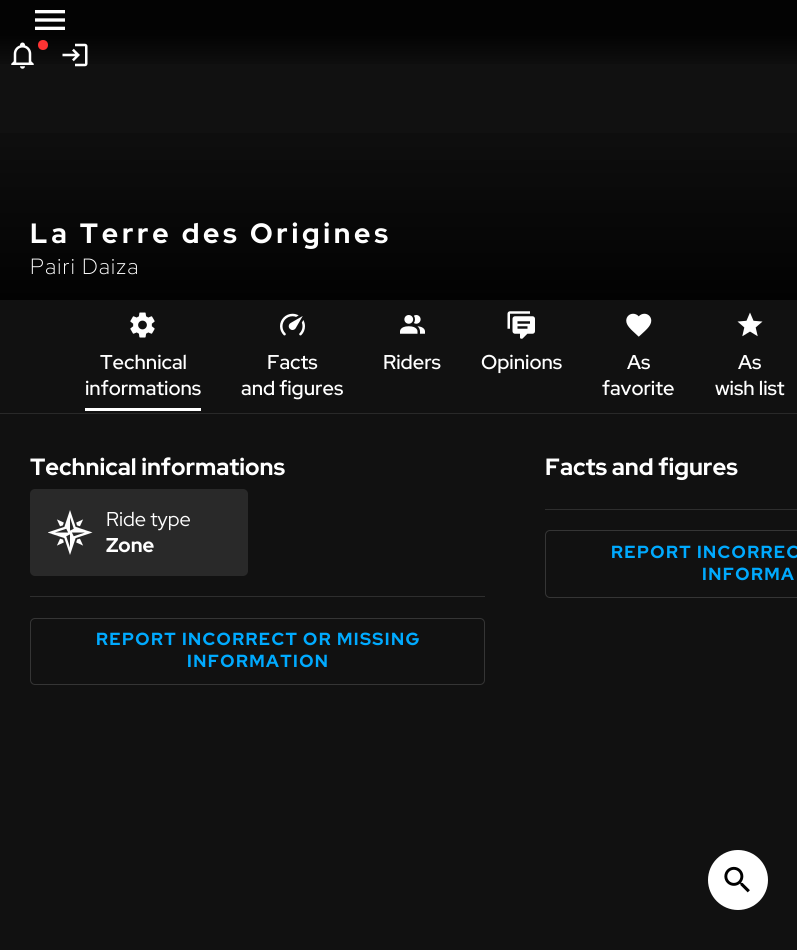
import math
import cairo



def draw_spaced(context, x, y, s, letter, word):
    context.move_to(x, y)
    for ch in s:
        context.show_text(ch)
        context.rel_move_to(letter + word * (ch == ' '), 0)


def rounded_rect(context, x, y, w, h, r):
    context.new_sub_path()
    for i, (u, v) in enumerate([(x + w - r, y + h - r), (x + r, y + h - r), (x + r, y + r), (x + w - r, y + r)]):
        context.arc(u, v, r, i * math.pi / 2, (i + 1) * math.pi / 2)
    context.close_path()


def draw_image(context, path, x, y, w, h):
    context.save()
    context.set_source_surface(cairo.ImageSurface.create_from_png(path), x, y)
    context.rectangle(x, y, w, h)
    context.fill()
    context.restore()


def draw(context):
    context.set_source_rgb(17 / 255, 17 / 255, 17 / 255)
    context.paint()
    gradient = cairo.LinearGradient(399, 0, 399, 70)
    gradient.add_color_stop_rgba(0.5, 3 / 255, 3 / 255, 3 / 255, 1)
    gradient.add_color_stop_rgba(1, 17 / 255, 17 / 255, 17 / 255, 1)
    context.set_source(gradient)
    context.rectangle(0, 0, 797, 64)
    context.fill()
    draw_image(context, "images/1.png", 35, 10, 30, 20)
    draw_image(context, "images/2.png", 11, 42, 23, 27)
    context.set_source_rgb(1, 51 / 255, 51 / 255)
    context.arc(43, 45, 5, 0, 2 * math.pi)
    context.fill()
    draw_image(context, "images/3.png", 62, 43, 26, 24)
    gradient = cairo.LinearGradient(399, 300, 399, 100)
    gradient.add_color_stop_rgba(0, 2 / 255, 2 / 255, 2 / 255, 1)
    gradient.add_color_stop_rgba(1, 17 / 255, 17 / 255, 17 / 255, 1)
    context.set_source(gradient)
    context.rectangle(0, 133, 797, 167)
    context.fill()
    context.set_source_rgb(41 / 255, 41 / 255, 41 / 255)
    context.rectangle(0, 413, 797, 1)
    context.fill()
    draw_image(context, "images/4.png", 130, 312, 25, 26)
    context.set_source_rgb(1, 1, 1)
    context.rectangle(85, 408, 116, 3)
    context.fill()
    draw_image(context, "images/5.png", 280, 313, 25, 23)
    draw_image(context, "images/6.png", 400, 315, 25, 19)
    draw_image(context, "images/7.png", 507, 311, 28, 28)
    draw_image(context, "images/8.png", 626, 313, 26, 24)
    draw_image(context, "images/9.png", 737, 312, 26, 25)
    context.set_source_rgb(41 / 255, 41 / 255, 41 / 255)
    rounded_rect(context, 30, 489, 218, 87, 5)
    context.fill()
    draw_image(context, "images/10.png", 48, 510, 45, 45)
    context.set_source_rgb(46 / 255, 46 / 255, 46 / 255)
    context.rectangle(30, 596, 455, 1)
    context.fill()
    rounded_rect(context, 30.5, 618.5, 454, 66, 4.5)
    context.set_source_rgb(53 / 255, 53 / 255, 53 / 255)
    context.set_line_width(1)
    context.stroke()
    context.set_source_rgb(46 / 255, 46 / 255, 46 / 255)
    context.rectangle(545, 509, 252, 1)
    context.fill()
    rounded_rect(context, 545.5, 530.5, 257, 67, 4.5)
    context.set_source_rgb(53 / 255, 53 / 255, 53 / 255)
    context.stroke()
    context.set_source_rgb(1, 1, 1)
    context.arc(738, 880, 30, 0, 2 * math.pi)
    context.fill()
    draw_image(context, "images/11.png", 724, 866, 26, 27)
    context.select_font_face("Red Hat Display", cairo.FontSlant.NORMAL, cairo.FontWeight.BOLD)
    context.set_font_size(27.9)
    draw_spaced(context, 30, 243, "La Terre des Origines", 3.75, 0)
    context.select_font_face("Red Hat Display Light")
    context.set_font_size(22)
    draw_spaced(context, 30, 274, "Pairi Daiza", 1.25, 0)
    context.select_font_face("Red Hat Display SemiBold")
    context.set_font_size(20)
    context.move_to(100, 369)
    context.show_text("Technical")
    context.move_to(85, 395)
    context.show_text("informations")
    context.move_to(267, 369)
    context.show_text("Facts")
    context.move_to(241, 395)
    context.show_text("and figures")
    context.move_to(383, 369)
    context.show_text("Riders")
    context.move_to(481, 369)
    context.show_text("Opinions")
    context.move_to(627, 369)
    context.show_text("As")
    context.move_to(602, 395)
    context.show_text("favorite")
    context.move_to(738, 369)
    context.show_text("As")
    context.move_to(715, 395)
    context.show_text("wish list")
    context.select_font_face("Red Hat Display", cairo.FontSlant.NORMAL, cairo.FontWeight.BOLD)
    context.set_font_size(23.5)
    context.move_to(30, 475)
    context.show_text("Technical informations")
    context.select_font_face("Red Hat Display")
    context.set_font_size(20)
    context.move_to(106, 526)
    context.show_text("Ride type")
    context.select_font_face("Red Hat Display", cairo.FontSlant.NORMAL, cairo.FontWeight.BOLD)
    context.move_to(106, 552)
    context.show_text("Zone")
    context.set_font_size(17.5)
    context.set_source_rgb(0, 170 / 255, 1)
    draw_spaced(context, 96, 645, "REPORT INCORRECT OR MISSING", 1.4, 0)
    draw_spaced(context, 187, 667, "INFORMATION", 1.4, 0)
    context.set_font_size(23.5)
    context.set_source_rgb(1, 1, 1)
    context.move_to(545, 475)
    context.show_text("Facts and figures")
    context.set_font_size(17.5)
    context.set_source_rgb(0, 170 / 255, 1)
    draw_spaced(context, 611, 558, "REPORT INCORREC", 1.4, 0)
    draw_spaced(context, 702, 580, "INFORMA", 1.4, 0)


surface = cairo.ImageSurface(cairo.Format.RGB24, 797, 950)
context = cairo.Context(surface)
options = cairo.FontOptions()
options.set_hint_metrics(cairo.HintMetrics.OFF)
options.set_hint_style(cairo.HintStyle.NONE)
context.set_font_options(options)
context.set_miter_limit(4)
draw(context)
surface.write_to_png("out.png")
